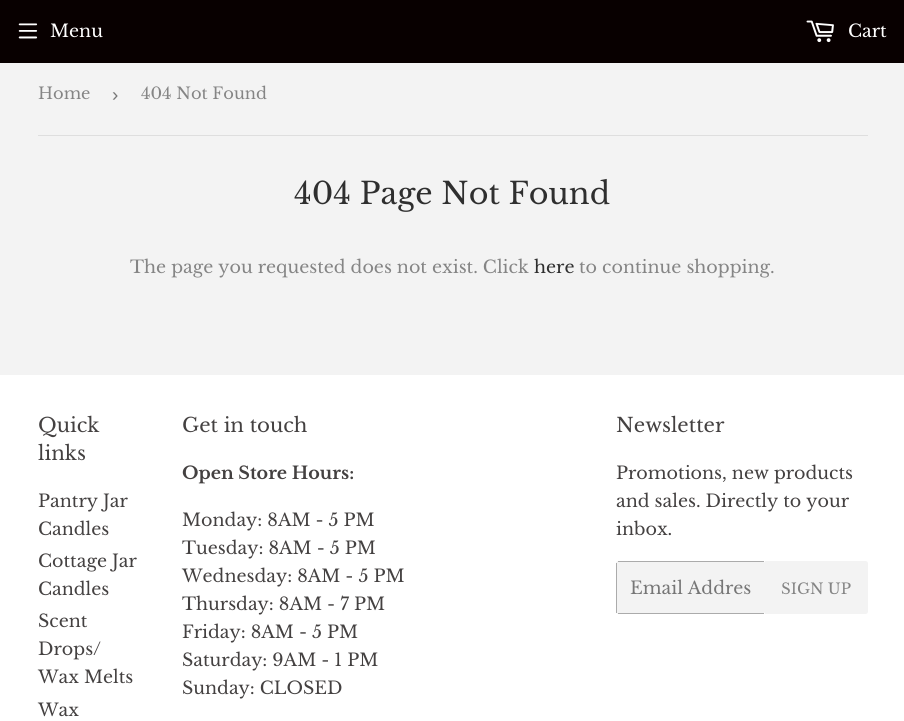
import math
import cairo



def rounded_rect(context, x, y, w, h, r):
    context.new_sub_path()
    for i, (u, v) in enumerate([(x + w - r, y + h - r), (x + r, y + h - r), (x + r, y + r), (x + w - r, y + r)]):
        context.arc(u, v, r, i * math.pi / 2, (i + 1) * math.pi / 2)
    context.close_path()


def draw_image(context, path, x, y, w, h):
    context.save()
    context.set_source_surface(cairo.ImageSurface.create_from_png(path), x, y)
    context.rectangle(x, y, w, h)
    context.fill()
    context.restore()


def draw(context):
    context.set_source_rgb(243 / 255, 243 / 255, 243 / 255)
    context.paint()
    context.set_source_rgb(8 / 255, 0, 0)
    context.rectangle(0, 0, 904, 63)
    context.fill()
    draw_image(context, "images/1.png", 18, 23, 20, 16)
    draw_image(context, "images/2.png", 806, 20, 28, 23)
    context.set_source_rgb(222 / 255, 222 / 255, 222 / 255)
    context.rectangle(38, 135, 830, 1)
    context.fill()
    context.set_source_rgb(1, 1, 1)
    context.rectangle(0, 375, 904, 346)
    context.fill()
    context.set_source_rgb(243 / 255, 243 / 255, 243 / 255)
    rounded_rect(context, 616, 561, 149, 53, 2.5)
    context.fill()
    context.set_source_rgb(171 / 255, 171 / 255, 171 / 255)
    context.rectangle(618, 561, 146, 1)
    context.fill()
    context.rectangle(618, 613, 146, 1)
    context.fill()
    context.rectangle(616, 563, 1, 50)
    context.fill()
    context.set_source_rgb(243 / 255, 243 / 255, 243 / 255)
    context.new_path()
    context.move_to(765, 561)
    context.line_to(865.5, 561)
    context.curve_to(867, 561, 868, 562, 868, 563.5)
    context.line_to(868, 611.5)
    context.curve_to(868, 613, 867, 614, 865.5, 614)
    context.line_to(765, 614)
    context.close_path()
    context.fill()
    context.select_font_face("Libre Baskerville")
    context.set_font_size(17.5)
    context.set_source_rgb(1, 1, 1)
    context.move_to(50, 37)
    context.show_text("Menu")
    context.move_to(848, 37)
    context.show_text("Cart")
    context.set_font_size(16.25)
    context.set_source_rgb(133 / 255, 133 / 255, 133 / 255)
    context.move_to(38, 99)
    context.show_text("Home")
    context.select_font_face("Liberation Sans")
    context.set_font_size(19)
    context.set_source_rgb(118 / 255, 118 / 255, 118 / 255)
    context.move_to(112, 101)
    context.show_text("›")
    context.select_font_face("Libre Baskerville")
    context.set_font_size(16.25)
    context.set_source_rgb(133 / 255, 133 / 255, 133 / 255)
    context.move_to(141, 99)
    context.show_text("404 Not Found")
    context.set_font_size(30.25)
    context.set_source_rgb(47 / 255, 47 / 255, 47 / 255)
    context.move_to(294, 204)
    context.show_text("404 Page Not Found")
    context.set_font_size(17.5)
    context.set_source_rgb(133 / 255, 133 / 255, 133 / 255)
    context.move_to(130, 273)
    context.show_text("The page you requested does not exist. Click")
    context.set_source_rgb(47 / 255, 47 / 255, 47 / 255)
    context.move_to(534, 273)
    context.show_text("here")
    context.set_source_rgb(133 / 255, 133 / 255, 133 / 255)
    context.move_to(579, 273)
    context.show_text("to continue shopping.")
    context.set_font_size(19.75)
    context.set_source_rgb(68 / 255, 65 / 255, 65 / 255)
    context.move_to(38, 432)
    context.show_text("Quick")
    context.move_to(38, 460)
    context.show_text("links")
    context.set_font_size(17.5)
    context.move_to(38, 507)
    context.show_text("Pantry Jar")
    context.move_to(38, 535)
    context.show_text("Candles")
    context.move_to(38, 567)
    context.show_text("Cottage Jar")
    context.move_to(38, 595)
    context.show_text("Candles")
    context.move_to(38, 627)
    context.show_text("Scent")
    context.move_to(38, 655)
    context.show_text("Drops/")
    context.move_to(38, 683)
    context.show_text("Wax Melts")
    context.move_to(38, 716)
    context.show_text("Wax")
    context.set_font_size(19.75)
    context.move_to(182, 432)
    context.show_text("Get in touch")
    context.select_font_face("Libre Baskerville", cairo.FontSlant.NORMAL, cairo.FontWeight.BOLD)
    context.set_font_size(17.5)
    context.move_to(182, 479)
    context.show_text("Open Store Hours:")
    context.select_font_face("Libre Baskerville")
    context.move_to(182, 526)
    context.show_text("Monday: 8AM - 5 PM")
    context.move_to(182, 554)
    context.show_text("Tuesday: 8AM - 5 PM")
    context.move_to(182, 582)
    context.show_text("Wednesday: 8AM - 5 PM")
    context.move_to(182, 610)
    context.show_text("Thursday: 8AM - 7 PM")
    context.move_to(182, 638)
    context.show_text("Friday: 8AM - 5 PM")
    context.move_to(182, 666)
    context.show_text("Saturday: 9AM - 1 PM")
    context.move_to(182, 694)
    context.show_text("Sunday: CLOSED")
    context.set_font_size(19.75)
    context.move_to(616, 432)
    context.show_text("Newsletter")
    context.set_font_size(17.5)
    context.move_to(616, 479)
    context.show_text("Promotions, new products")
    context.move_to(616, 507)
    context.show_text("and sales. Directly to your")
    context.move_to(616, 535)
    context.show_text("inbox.")
    context.set_source_rgb(118 / 255, 118 / 255, 118 / 255)
    context.move_to(630, 594)
    context.show_text("Email Addres")
    context.set_font_size(15)
    context.set_source_rgb(133 / 255, 133 / 255, 133 / 255)
    context.move_to(781, 594)
    context.show_text("SIGN UP")


surface = cairo.ImageSurface(cairo.Format.RGB24, 904, 721)
context = cairo.Context(surface)
options = cairo.FontOptions()
options.set_hint_metrics(cairo.HintMetrics.OFF)
options.set_hint_style(cairo.HintStyle.NONE)
context.set_font_options(options)
context.set_miter_limit(4)
draw(context)
surface.write_to_png("out.png")
